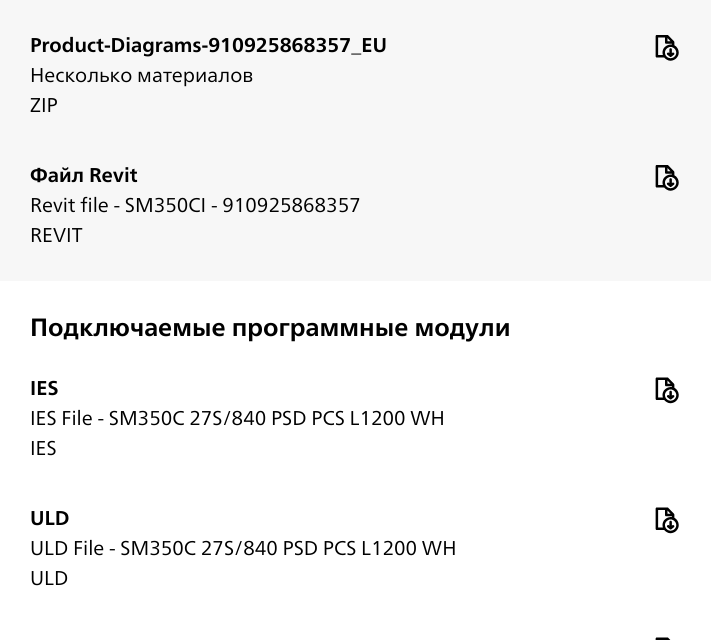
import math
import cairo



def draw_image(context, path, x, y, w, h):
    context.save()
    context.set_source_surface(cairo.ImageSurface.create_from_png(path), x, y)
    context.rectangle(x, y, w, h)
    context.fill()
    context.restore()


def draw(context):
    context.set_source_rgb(1, 1, 1)
    context.paint()
    context.set_source_rgb(247 / 255, 247 / 255, 247 / 255)
    context.rectangle(0, 0, 711, 281)
    context.fill()
    draw_image(context, "images/1.png", 655, 35, 24, 26)
    draw_image(context, "images/1.png", 655, 165, 24, 26)
    draw_image(context, "images/2.png", 655, 377, 24, 27)
    draw_image(context, "images/3.png", 655, 507, 24, 27)
    draw_image(context, "images/4.png", 655, 637, 16, 3)
    context.select_font_face("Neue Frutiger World", cairo.FontSlant.NORMAL, cairo.FontWeight.BOLD)
    context.set_font_size(20)
    context.set_source_rgb(0, 0, 0)
    context.move_to(30, 52)
    context.show_text("Product-Diagrams-910925868357_EU")
    context.select_font_face("Neue Frutiger World")
    context.move_to(30, 82)
    context.show_text("Несколько материалов")
    context.move_to(30, 112)
    context.show_text("ZIP")
    context.select_font_face("Neue Frutiger World", cairo.FontSlant.NORMAL, cairo.FontWeight.BOLD)
    context.move_to(30, 182)
    context.show_text("Файл Revit")
    context.select_font_face("Neue Frutiger World")
    context.move_to(30, 212)
    context.show_text("Revit file - SM350CI - 910925868357")
    context.move_to(30, 242)
    context.show_text("REVIT")
    context.select_font_face("Neue Frutiger World", cairo.FontSlant.NORMAL, cairo.FontWeight.BOLD)
    context.set_font_size(25)
    context.move_to(30, 336)
    context.show_text("Подключаемые программные модули")
    context.set_font_size(20)
    context.move_to(30, 395)
    context.show_text("IES")
    context.select_font_face("Neue Frutiger World")
    context.move_to(30, 425)
    context.show_text("IES File - SM350C 27S/840 PSD PCS L1200 WH")
    context.move_to(30, 455)
    context.show_text("IES")
    context.select_font_face("Neue Frutiger World", cairo.FontSlant.NORMAL, cairo.FontWeight.BOLD)
    context.move_to(30, 525)
    context.show_text("ULD")
    context.select_font_face("Neue Frutiger World")
    context.move_to(30, 555)
    context.show_text("ULD File - SM350C 27S/840 PSD PCS L1200 WH")
    context.move_to(30, 585)
    context.show_text("ULD")


surface = cairo.ImageSurface(cairo.Format.RGB24, 711, 640)
context = cairo.Context(surface)
options = cairo.FontOptions()
options.set_hint_metrics(cairo.HintMetrics.OFF)
options.set_hint_style(cairo.HintStyle.NONE)
context.set_font_options(options)
context.set_miter_limit(4)
draw(context)
surface.write_to_png("out.png")
